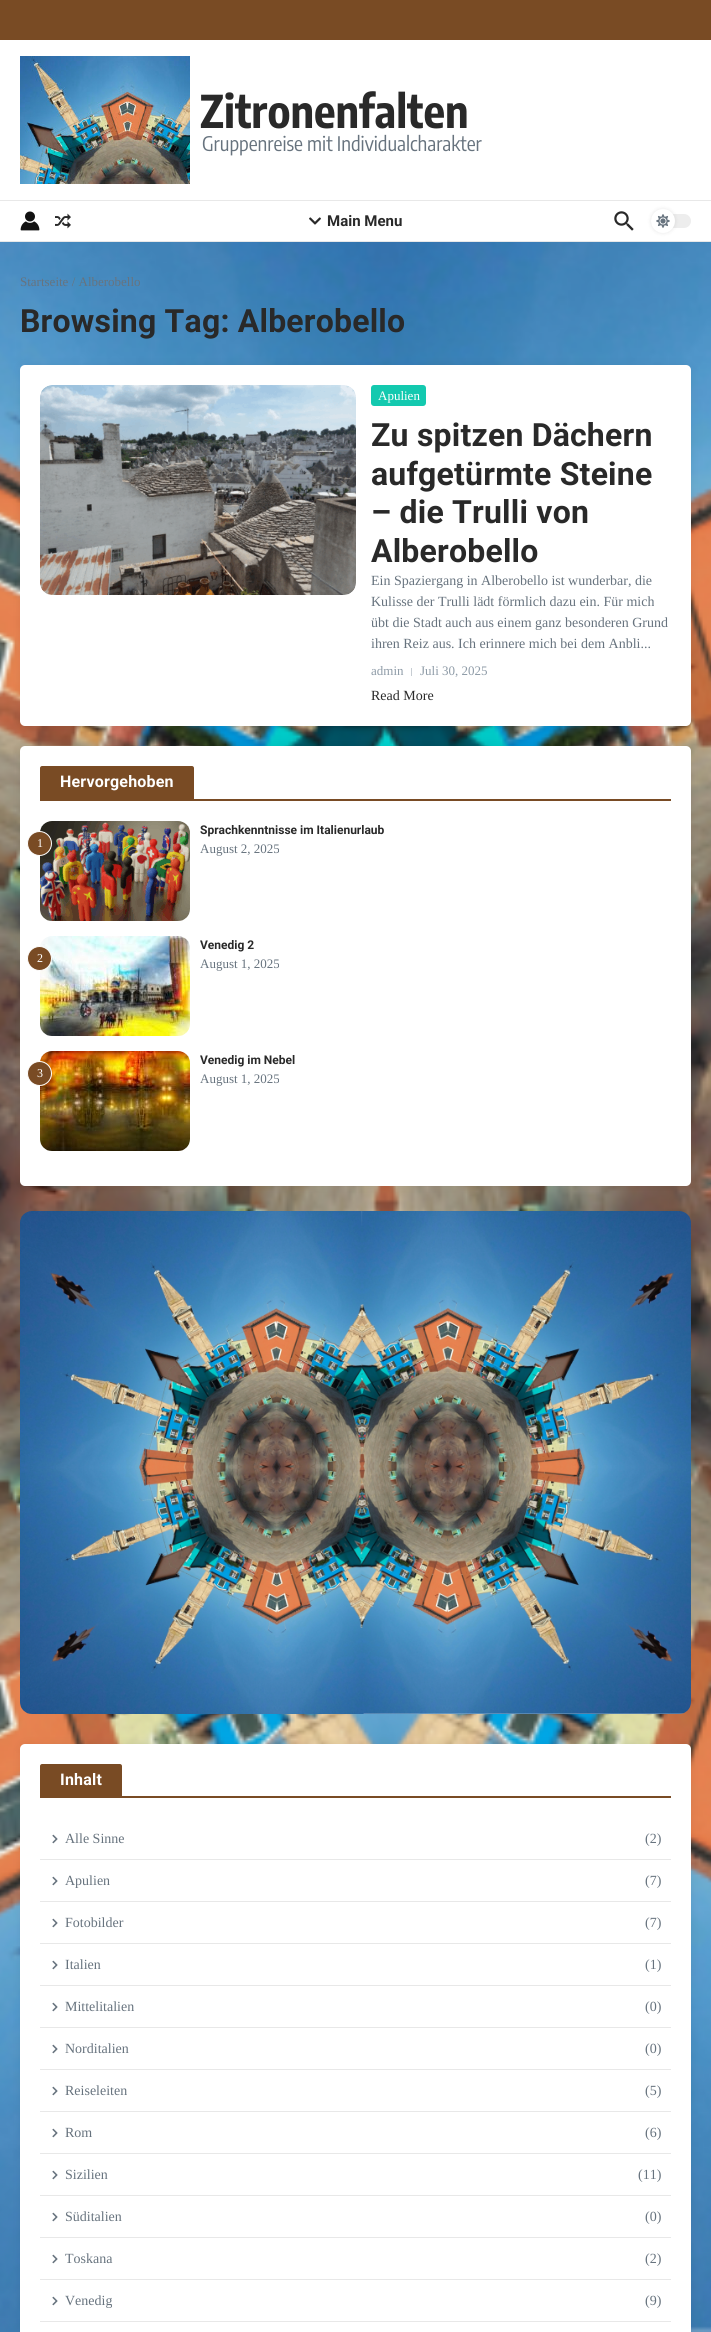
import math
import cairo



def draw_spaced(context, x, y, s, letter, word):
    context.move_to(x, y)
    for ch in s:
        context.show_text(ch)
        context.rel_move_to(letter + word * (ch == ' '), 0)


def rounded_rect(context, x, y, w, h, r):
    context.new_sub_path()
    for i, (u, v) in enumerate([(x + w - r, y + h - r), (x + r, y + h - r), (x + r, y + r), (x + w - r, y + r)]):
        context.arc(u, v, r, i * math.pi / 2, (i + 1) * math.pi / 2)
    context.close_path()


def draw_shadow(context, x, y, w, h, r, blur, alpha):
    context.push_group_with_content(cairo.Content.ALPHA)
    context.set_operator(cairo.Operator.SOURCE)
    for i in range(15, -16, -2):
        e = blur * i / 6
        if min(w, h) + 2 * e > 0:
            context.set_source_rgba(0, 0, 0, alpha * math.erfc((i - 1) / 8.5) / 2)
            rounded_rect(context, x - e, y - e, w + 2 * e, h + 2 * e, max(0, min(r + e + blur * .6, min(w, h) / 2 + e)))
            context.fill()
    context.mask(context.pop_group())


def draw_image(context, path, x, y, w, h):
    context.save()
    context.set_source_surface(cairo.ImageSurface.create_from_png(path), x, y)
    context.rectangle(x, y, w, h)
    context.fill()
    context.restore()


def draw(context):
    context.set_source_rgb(1, 1, 1)
    context.paint()
    draw_image(context, "images/1.png", 0, 242, 711, 2090)
    context.set_source_rgb(121 / 255, 75 / 255, 36 / 255)
    context.rectangle(0, 0, 711, 40)
    context.fill()
    context.set_source_rgb(232 / 255, 232 / 255, 232 / 255)
    context.rectangle(0, 200, 711, 1)
    context.fill()
    draw_image(context, "images/2.png", 20, 56, 170, 128)
    context.rectangle(0, 241, 711, 1)
    context.fill()
    draw_image(context, "images/3.png", 20, 211, 20, 20)
    draw_image(context, "images/4.png", 55, 213, 16, 16)
    draw_image(context, "images/5.png", 309, 217, 12, 8)
    draw_image(context, "images/6.png", 614, 211, 20, 20)
    context.set_source_rgb(237 / 255, 237 / 255, 237 / 255)
    rounded_rect(context, 651, 214, 40, 14, 7)
    context.fill()
    context.set_source_rgb(0, 0, 0)
    draw_shadow(context, 651, 209, 24, 24, 12, 2, 0.1)
    context.set_source_rgb(1, 1, 1)
    context.arc(663, 221, 12, 0, 2 * math.pi)
    context.fill()
    draw_image(context, "images/7.png", 656, 214, 14, 14)
    context.set_source_rgb(0, 0, 0)
    draw_shadow(context, 19, 364, 673, 363, 6, 4, 0.05)
    context.set_source_rgb(1, 1, 1)
    rounded_rect(context, 20, 365, 671, 361, 5)
    context.fill()
    draw_image(context, "images/8.png", 40, 385, 316, 210)
    context.set_source_rgb(19 / 255, 201 / 255, 175 / 255)
    rounded_rect(context, 371, 385, 55, 21, 3)
    context.fill()
    context.set_source_rgb(199 / 255, 205 / 255, 211 / 255)
    context.rectangle(411, 668, 1, 8)
    context.fill()
    context.set_source_rgb(0, 0, 0)
    draw_shadow(context, 19, 745, 673, 442, 6, 4, 0.05)
    context.set_source_rgb(1, 1, 1)
    rounded_rect(context, 20, 746, 671, 440, 5)
    context.fill()
    context.set_source_rgb(121 / 255, 75 / 255, 36 / 255)
    context.rectangle(40, 799, 631, 2)
    context.fill()
    context.new_path()
    context.move_to(42, 766)
    context.line_to(192, 766)
    context.curve_to(193, 766, 194, 767, 194, 768)
    context.line_to(194, 799)
    context.line_to(40, 799)
    context.line_to(40, 768)
    context.curve_to(40, 767, 41, 766, 42, 766)
    context.close_path()
    context.fill()
    draw_image(context, "images/9.png", 40, 821, 150, 100)
    context.arc(39.5, 843.5, 12, 0, 2 * math.pi)
    context.fill_preserve()
    context.set_source_rgb(1, 1, 1)
    context.set_line_width(1)
    context.stroke()
    draw_image(context, "images/10.png", 40, 936, 150, 100)
    context.set_source_rgb(121 / 255, 75 / 255, 36 / 255)
    context.arc(39.5, 958.5, 12, 0, 2 * math.pi)
    context.fill_preserve()
    context.set_source_rgb(1, 1, 1)
    context.stroke()
    draw_image(context, "images/11.png", 40, 1051, 150, 100)
    context.set_source_rgb(121 / 255, 75 / 255, 36 / 255)
    context.arc(39.5, 1073.5, 12, 0, 2 * math.pi)
    context.fill_preserve()
    context.set_source_rgb(1, 1, 1)
    context.stroke()
    draw_image(context, "images/12.png", 20, 1211, 671, 503)
    context.set_source_rgb(0, 0, 0)
    draw_shadow(context, 19, 1743, 673, 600, 6, 4, 0.05)
    context.set_source_rgb(1, 1, 1)
    rounded_rect(context, 20, 1744, 671, 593, 5)
    context.fill()
    context.set_source_rgb(121 / 255, 75 / 255, 36 / 255)
    context.rectangle(40, 1796, 631, 2)
    context.fill()
    context.new_path()
    context.move_to(42, 1764)
    context.line_to(120, 1764)
    context.curve_to(121, 1764, 122, 1765, 122, 1766)
    context.line_to(122, 1796)
    context.line_to(40, 1796)
    context.line_to(40, 1766)
    context.curve_to(40, 1765, 41, 1764, 42, 1764)
    context.close_path()
    context.fill()
    context.set_source_rgb(232 / 255, 232 / 255, 232 / 255)
    context.rectangle(40, 1859, 631, 1)
    context.fill()
    draw_image(context, "images/13.png", 52, 1834, 6, 10)
    context.rectangle(40, 1901, 631, 1)
    context.fill()
    draw_image(context, "images/13.png", 52, 1876, 6, 10)
    context.rectangle(40, 1943, 631, 1)
    context.fill()
    draw_image(context, "images/13.png", 52, 1918, 6, 10)
    context.rectangle(40, 1985, 631, 1)
    context.fill()
    draw_image(context, "images/13.png", 52, 1960, 6, 10)
    context.rectangle(40, 2027, 631, 1)
    context.fill()
    draw_image(context, "images/13.png", 52, 2002, 6, 10)
    context.rectangle(40, 2069, 631, 1)
    context.fill()
    draw_image(context, "images/13.png", 52, 2044, 6, 10)
    context.rectangle(40, 2111, 631, 1)
    context.fill()
    draw_image(context, "images/13.png", 52, 2086, 6, 10)
    context.rectangle(40, 2153, 631, 1)
    context.fill()
    draw_image(context, "images/13.png", 52, 2128, 6, 10)
    context.rectangle(40, 2195, 631, 1)
    context.fill()
    draw_image(context, "images/13.png", 52, 2170, 6, 10)
    context.rectangle(40, 2237, 631, 1)
    context.fill()
    draw_image(context, "images/13.png", 52, 2212, 6, 10)
    context.rectangle(40, 2279, 631, 1)
    context.fill()
    draw_image(context, "images/13.png", 52, 2254, 6, 10)
    context.rectangle(40, 2321, 631, 1)
    context.fill()
    draw_image(context, "images/13.png", 52, 2296, 6, 10)
    context.select_font_face("Encode Sans Condensed", cairo.FontSlant.NORMAL, cairo.FontWeight.BOLD)
    context.set_font_size(45)
    context.set_source_rgb(41 / 255, 41 / 255, 41 / 255)
    context.move_to(200, 128)
    context.show_text("Zitronenfalten")
    context.select_font_face("Encode Sans Condensed")
    context.set_font_size(20)
    context.set_source_rgb(103 / 255, 115 / 255, 126 / 255)
    context.move_to(202, 151)
    context.show_text("Gruppenreise mit Individualcharakter")
    context.select_font_face("Roboto", cairo.FontSlant.NORMAL, cairo.FontWeight.BOLD)
    context.set_font_size(15)
    context.set_source_rgb(41 / 255, 41 / 255, 41 / 255)
    context.move_to(327, 226)
    context.show_text("Main Menu")
    context.select_font_face("Liberation Serif")
    context.set_font_size(13)
    context.set_source_rgb(103 / 255, 115 / 255, 126 / 255)
    context.move_to(20, 286)
    context.show_text("Startseite / Alberobello")
    context.select_font_face("Roboto", cairo.FontSlant.NORMAL, cairo.FontWeight.BOLD)
    context.set_font_size(32)
    context.set_source_rgb(41 / 255, 41 / 255, 41 / 255)
    draw_spaced(context, 20, 332, "Browsing Tag: Alberobello", 0.2, 0)
    context.select_font_face("Liberation Serif")
    context.set_font_size(13)
    context.set_source_rgb(1, 1, 1)
    context.move_to(378, 400)
    context.show_text("Apulien")
    context.select_font_face("Roboto", cairo.FontSlant.NORMAL, cairo.FontWeight.BOLD)
    context.set_font_size(32)
    context.set_source_rgb(41 / 255, 41 / 255, 41 / 255)
    draw_spaced(context, 371, 446, "Zu spitzen Dächern", 0.2, 0)
    draw_spaced(context, 371, 485, "aufgetürmte Steine", 0.2, 0)
    draw_spaced(context, 371, 523, "– die Trulli von", 0.2, 0)
    draw_spaced(context, 371, 562, "Alberobello", 0.2, 0)
    context.select_font_face("Liberation Serif")
    context.set_font_size(14)
    context.set_source_rgb(103 / 255, 115 / 255, 126 / 255)
    context.move_to(371, 585)
    context.show_text("Ein Spaziergang in Alberobello ist wunderbar, die")
    context.move_to(371, 606)
    context.show_text("Kulisse der Trulli lädt förmlich dazu ein. Für mich")
    context.move_to(371, 627)
    context.show_text("übt die Stadt auch aus einem ganz besonderen Grund")
    context.move_to(371, 648)
    context.show_text("ihren Reiz aus. Ich erinnere mich bei dem Anbli...")
    context.set_font_size(13)
    context.set_source_rgb(142 / 255, 155 / 255, 167 / 255)
    context.move_to(371, 675)
    context.show_text("admin")
    context.move_to(420, 675)
    context.show_text("Juli 30, 2025")
    context.set_font_size(14)
    context.set_source_rgb(41 / 255, 41 / 255, 41 / 255)
    context.move_to(371, 700)
    context.show_text("Read More")
    context.select_font_face("Roboto", cairo.FontSlant.NORMAL, cairo.FontWeight.BOLD)
    context.set_font_size(16)
    context.set_source_rgb(1, 1, 1)
    draw_spaced(context, 60, 787, "Hervorgehoben", 0.2, 0)
    context.select_font_face("Liberation Serif")
    context.set_font_size(12)
    context.move_to(37, 847)
    context.show_text("1")
    context.select_font_face("Roboto", cairo.FontSlant.NORMAL, cairo.FontWeight.BOLD)
    context.set_source_rgb(41 / 255, 41 / 255, 41 / 255)
    context.move_to(200, 834)
    context.show_text("Sprachkenntnisse im Italienurlaub")
    context.select_font_face("Liberation Serif")
    context.set_font_size(13)
    context.set_source_rgb(103 / 255, 115 / 255, 126 / 255)
    context.move_to(200, 853)
    context.show_text("August 2, 2025")
    context.set_font_size(12)
    context.set_source_rgb(1, 1, 1)
    context.move_to(37, 962)
    context.show_text("2")
    context.select_font_face("Roboto", cairo.FontSlant.NORMAL, cairo.FontWeight.BOLD)
    context.set_source_rgb(41 / 255, 41 / 255, 41 / 255)
    context.move_to(200, 949)
    context.show_text("Venedig 2")
    context.select_font_face("Liberation Serif")
    context.set_font_size(13)
    context.set_source_rgb(103 / 255, 115 / 255, 126 / 255)
    context.move_to(200, 968)
    context.show_text("August 1, 2025")
    context.set_font_size(12)
    context.set_source_rgb(1, 1, 1)
    context.move_to(37, 1077)
    context.show_text("3")
    context.select_font_face("Roboto", cairo.FontSlant.NORMAL, cairo.FontWeight.BOLD)
    context.set_source_rgb(41 / 255, 41 / 255, 41 / 255)
    context.move_to(200, 1064)
    context.show_text("Venedig im Nebel")
    context.select_font_face("Liberation Serif")
    context.set_font_size(13)
    context.set_source_rgb(103 / 255, 115 / 255, 126 / 255)
    context.move_to(200, 1083)
    context.show_text("August 1, 2025")
    context.select_font_face("Roboto", cairo.FontSlant.NORMAL, cairo.FontWeight.BOLD)
    context.set_font_size(16)
    context.set_source_rgb(1, 1, 1)
    draw_spaced(context, 60, 1785, "Inhalt", 0.2, 0)
    context.select_font_face("Liberation Serif")
    context.set_font_size(14)
    context.set_source_rgb(103 / 255, 115 / 255, 126 / 255)
    context.move_to(65, 1843)
    context.show_text("Alle Sinne")
    context.move_to(645, 1843)
    context.show_text("(2)")
    context.move_to(65, 1885)
    context.show_text("Apulien")
    context.move_to(645, 1885)
    context.show_text("(7)")
    context.move_to(65, 1927)
    context.show_text("Fotobilder")
    context.move_to(645, 1927)
    context.show_text("(7)")
    context.move_to(65, 1969)
    context.show_text("Italien")
    context.move_to(645, 1969)
    context.show_text("(1)")
    context.move_to(65, 2011)
    context.show_text("Mittelitalien")
    context.move_to(645, 2011)
    context.show_text("(0)")
    context.move_to(65, 2053)
    context.show_text("Norditalien")
    context.move_to(645, 2053)
    context.show_text("(0)")
    context.move_to(65, 2095)
    context.show_text("Reiseleiten")
    context.move_to(645, 2095)
    context.show_text("(5)")
    context.move_to(65, 2137)
    context.show_text("Rom")
    context.move_to(645, 2137)
    context.show_text("(6)")
    context.move_to(65, 2179)
    context.show_text("Sizilien")
    context.move_to(638, 2179)
    context.show_text("(11)")
    context.move_to(65, 2221)
    context.show_text("Süditalien")
    context.move_to(645, 2221)
    context.show_text("(0)")
    context.move_to(65, 2263)
    context.show_text("Toskana")
    context.move_to(645, 2263)
    context.show_text("(2)")
    context.move_to(65, 2305)
    context.show_text("Venedig")
    context.move_to(645, 2305)
    context.show_text("(9)")


surface = cairo.ImageSurface(cairo.Format.RGB24, 711, 2332)
context = cairo.Context(surface)
options = cairo.FontOptions()
options.set_hint_metrics(cairo.HintMetrics.OFF)
options.set_hint_style(cairo.HintStyle.NONE)
context.set_font_options(options)
context.set_miter_limit(4)
draw(context)
surface.write_to_png("out.png")
